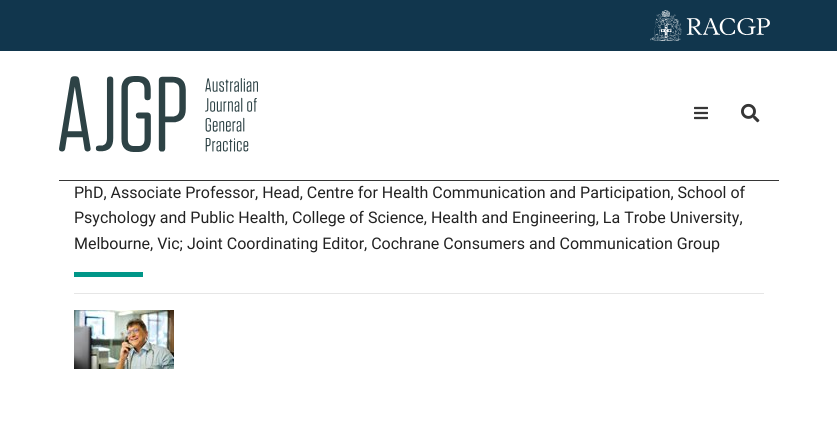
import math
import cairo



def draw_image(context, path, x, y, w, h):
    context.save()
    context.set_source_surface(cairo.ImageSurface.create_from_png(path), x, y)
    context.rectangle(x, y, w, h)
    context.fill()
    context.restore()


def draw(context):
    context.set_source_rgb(1, 1, 1)
    context.paint()
    context.set_source_rgb(17 / 255, 54 / 255, 77 / 255)
    context.rectangle(0, 0, 837, 51)
    context.fill()
    draw_image(context, "images/1.png", 650, 10, 120, 31)
    context.set_source_rgb(54 / 255, 54 / 255, 54 / 255)
    context.rectangle(59, 180, 720, 1)
    context.fill()
    draw_image(context, "images/2.png", 59, 76, 199, 76)
    draw_image(context, "images/3.png", 694, 106, 14, 14)
    draw_image(context, "images/4.png", 741, 103, 19, 20)
    context.set_source_rgb(0, 150 / 255, 136 / 255)
    context.rectangle(74, 272, 69, 5)
    context.fill()
    context.set_source_rgb(230 / 255, 230 / 255, 230 / 255)
    context.rectangle(74, 293, 690, 1)
    context.fill()
    draw_image(context, "images/5.png", 74, 310, 100, 59)
    context.select_font_face("Roboto")
    context.set_font_size(16)
    context.set_source_rgb(34 / 255, 34 / 255, 34 / 255)
    context.move_to(74, 198)
    context.show_text("PhD, Associate Professor, Head, Centre for Health Communication and Participation, School of")
    context.move_to(74, 223)
    context.show_text("Psychology and Public Health, College of Science, Health and Engineering, La Trobe University,")
    context.move_to(74, 249)
    context.show_text("Melbourne, Vic; Joint Coordinating Editor, Cochrane Consumers and Communication Group")


surface = cairo.ImageSurface(cairo.Format.RGB24, 837, 426)
context = cairo.Context(surface)
options = cairo.FontOptions()
options.set_hint_metrics(cairo.HintMetrics.OFF)
options.set_hint_style(cairo.HintStyle.NONE)
context.set_font_options(options)
context.set_miter_limit(4)
draw(context)
surface.write_to_png("out.png")
